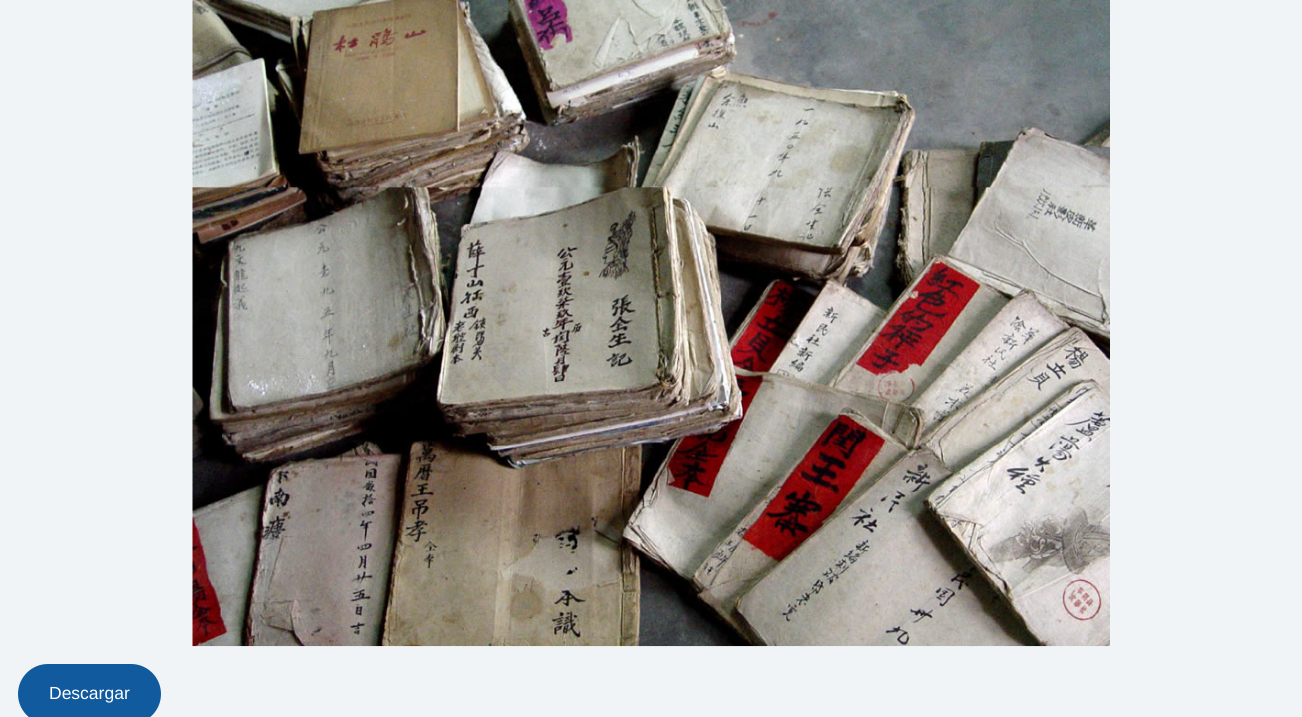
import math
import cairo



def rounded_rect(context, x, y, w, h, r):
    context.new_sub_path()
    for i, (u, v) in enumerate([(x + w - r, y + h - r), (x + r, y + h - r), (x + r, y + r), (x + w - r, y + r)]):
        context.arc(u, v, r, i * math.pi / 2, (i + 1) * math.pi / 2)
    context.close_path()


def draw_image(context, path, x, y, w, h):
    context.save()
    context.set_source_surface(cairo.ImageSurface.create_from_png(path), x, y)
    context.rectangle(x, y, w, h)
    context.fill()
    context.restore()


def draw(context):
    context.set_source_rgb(241 / 255, 244 / 255, 246 / 255)
    context.paint()
    draw_image(context, "images/1.png", 192, 0, 918, 647)
    context.set_source_rgb(17 / 255, 90 / 255, 158 / 255)
    rounded_rect(context, 18, 664, 143, 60, 30)
    context.fill()
    context.select_font_face("Liberation Sans")
    context.set_font_size(17.5)
    context.set_source_rgb(1, 1, 1)
    context.move_to(49, 699)
    context.show_text("Descargar")


surface = cairo.ImageSurface(cairo.Format.RGB24, 1302, 717)
context = cairo.Context(surface)
options = cairo.FontOptions()
options.set_hint_metrics(cairo.HintMetrics.OFF)
options.set_hint_style(cairo.HintStyle.NONE)
context.set_font_options(options)
context.set_miter_limit(4)
draw(context)
surface.write_to_png("out.png")
